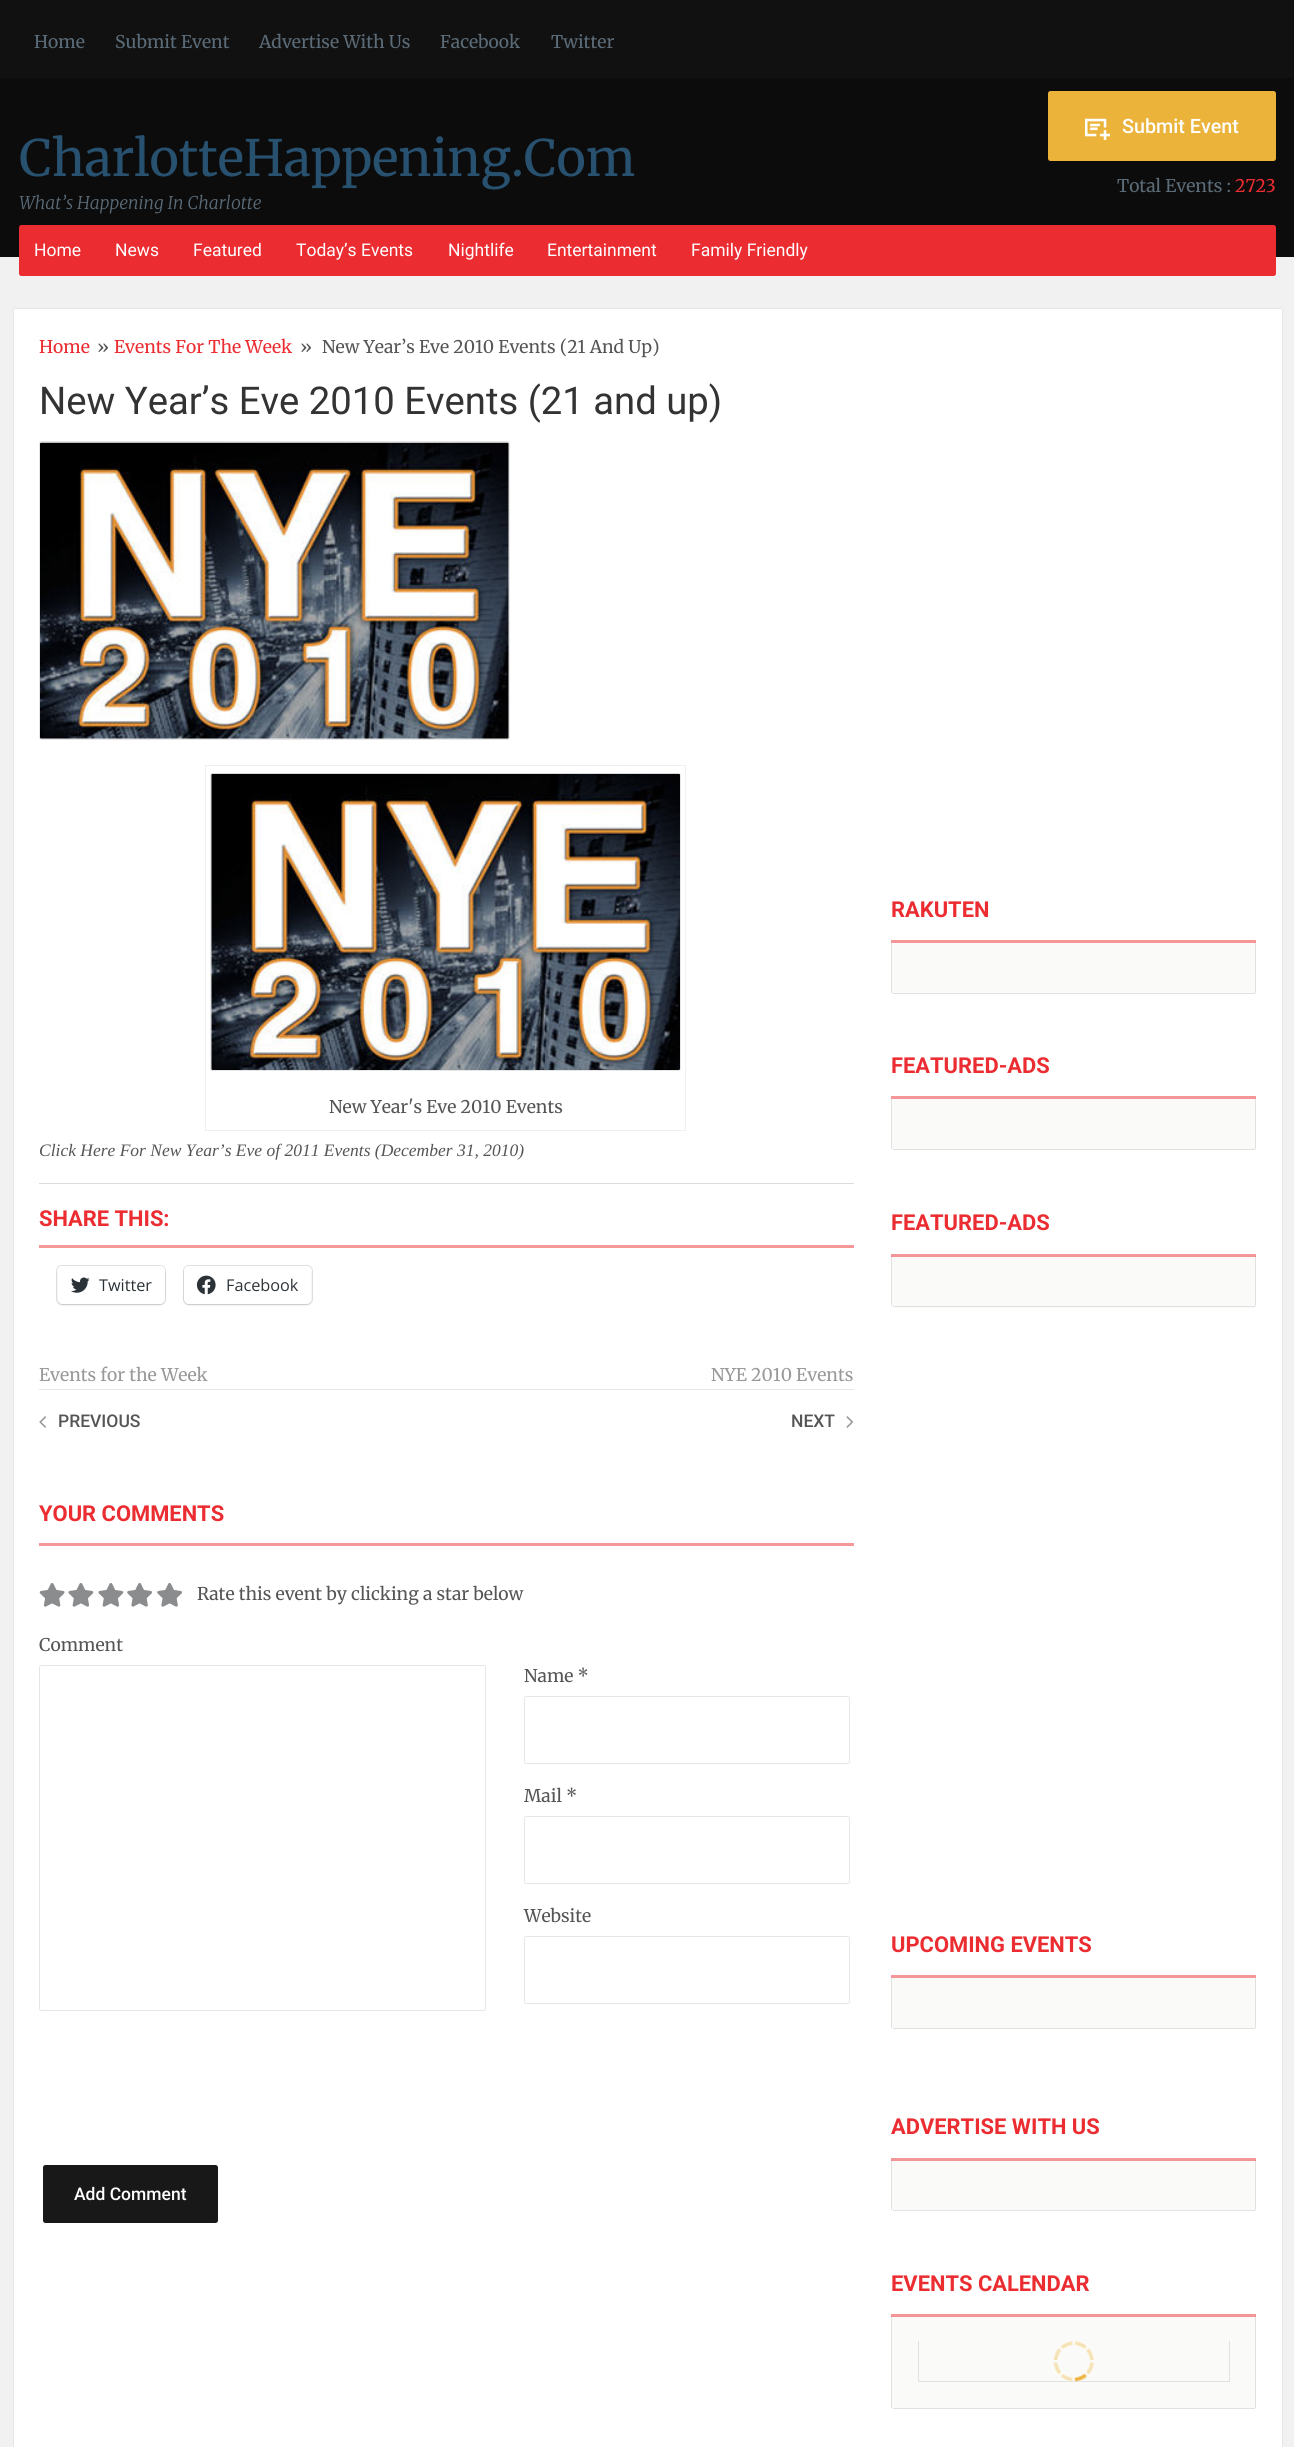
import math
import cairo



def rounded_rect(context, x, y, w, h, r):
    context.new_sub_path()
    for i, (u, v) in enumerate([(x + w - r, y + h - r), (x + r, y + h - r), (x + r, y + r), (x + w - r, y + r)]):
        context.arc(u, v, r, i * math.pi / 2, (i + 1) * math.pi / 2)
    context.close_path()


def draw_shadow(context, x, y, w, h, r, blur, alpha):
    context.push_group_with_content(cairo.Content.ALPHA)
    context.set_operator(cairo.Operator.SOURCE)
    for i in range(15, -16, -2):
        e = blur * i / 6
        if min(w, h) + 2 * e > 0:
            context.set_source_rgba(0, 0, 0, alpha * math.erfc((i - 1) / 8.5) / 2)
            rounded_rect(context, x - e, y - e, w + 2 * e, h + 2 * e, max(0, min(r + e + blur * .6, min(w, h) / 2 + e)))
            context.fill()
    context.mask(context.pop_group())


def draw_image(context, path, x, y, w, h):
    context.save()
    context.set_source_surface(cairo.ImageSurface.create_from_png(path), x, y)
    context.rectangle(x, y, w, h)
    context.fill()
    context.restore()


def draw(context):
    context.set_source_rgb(241 / 255, 241 / 255, 241 / 255)
    context.paint()
    context.set_source_rgb(17 / 255, 17 / 255, 17 / 255)
    context.rectangle(0, 0, 1294, 78)
    context.fill()
    context.set_source_rgb(12 / 255, 12 / 255, 12 / 255)
    context.rectangle(0, 78, 1294, 179)
    context.fill()
    context.set_source_rgb(235 / 255, 179 / 255, 58 / 255)
    rounded_rect(context, 1048, 91, 228, 70, 2.5)
    context.fill()
    draw_image(context, "images/1.png", 1085, 118, 25, 22)
    context.set_source_rgb(235 / 255, 44 / 255, 49 / 255)
    rounded_rect(context, 19, 225, 1257, 51, 2.5)
    context.fill()
    context.set_source_rgb(1, 1, 1)
    rounded_rect(context, 13, 308, 1270, 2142, 2.5)
    context.fill()
    rounded_rect(context, 13.5, 308.5, 1269, 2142, 2)
    context.set_source_rgba(0, 0, 0, 0.1)
    context.set_line_width(1)
    context.stroke()
    rounded_rect(context, 39.5, 441.5, 470, 298, 2)
    context.set_source_rgb(230 / 255, 230 / 255, 230 / 255)
    context.stroke()
    draw_image(context, "images/2.png", 40, 442, 469, 297)
    context.rectangle(205.5, 765.5, 480, 365)
    context.set_source_rgb(240 / 255, 240 / 255, 240 / 255)
    context.stroke()
    rounded_rect(context, 210.5, 773.5, 470, 297, 2)
    context.set_source_rgb(230 / 255, 230 / 255, 230 / 255)
    context.stroke()
    draw_image(context, "images/3.png", 211, 773, 469, 297)
    context.set_source_rgb(245 / 255, 150 / 255, 152 / 255)
    context.rectangle(39, 1245, 815, 3)
    context.fill()
    context.set_source_rgb(220 / 255, 220 / 255, 222 / 255)
    context.rectangle(39, 1183, 815, 1)
    context.fill()
    rounded_rect(context, 56.5, 1265.5, 109, 39, 5.5)
    context.set_source_rgb(224 / 255, 224 / 255, 224 / 255)
    context.stroke()
    context.set_source_rgb(0, 0, 0)
    draw_shadow(context, 58, 1268, 107, 37, 5, 1, 0.12)
    context.set_source_rgb(1, 1, 1)
    rounded_rect(context, 58, 1266, 107, 38, 5)
    context.fill()
    draw_image(context, "images/4.png", 71, 1277, 19, 16)
    rounded_rect(context, 183.5, 1265.5, 129, 39, 5.5)
    context.set_source_rgb(224 / 255, 224 / 255, 224 / 255)
    context.stroke()
    context.set_source_rgb(0, 0, 0)
    draw_shadow(context, 184, 1268, 127, 37, 5, 1, 0.12)
    context.set_source_rgb(1, 1, 1)
    rounded_rect(context, 184, 1266, 127, 38, 5)
    context.fill()
    draw_image(context, "images/5.png", 196, 1275, 20, 20)
    context.set_source_rgb(230 / 255, 230 / 255, 230 / 255)
    context.rectangle(39, 1389, 815, 1)
    context.fill()
    draw_image(context, "images/6.png", 39, 1416, 7, 12)
    draw_image(context, "images/7.png", 846, 1416, 7, 12)
    context.set_source_rgb(245 / 255, 150 / 255, 152 / 255)
    context.rectangle(39, 1543, 815, 3)
    context.fill()
    draw_image(context, "images/8.png", 39, 1583, 26, 24)
    draw_image(context, "images/9.png", 68, 1583, 26, 24)
    draw_image(context, "images/9.png", 98, 1583, 26, 24)
    draw_image(context, "images/10.png", 127, 1583, 25, 24)
    draw_image(context, "images/10.png", 157, 1583, 25, 24)
    rounded_rect(context, 39.5, 1665.5, 446, 345, 2)
    context.set_source_rgb(230 / 255, 230 / 255, 230 / 255)
    context.stroke()
    rounded_rect(context, 524.5, 1696.5, 325, 67, 2)
    context.stroke()
    rounded_rect(context, 524.5, 1816.5, 325, 67, 2)
    context.stroke()
    rounded_rect(context, 524.5, 1936.5, 325, 67, 2)
    context.stroke()
    context.set_source_rgb(24 / 255, 24 / 255, 24 / 255)
    rounded_rect(context, 43, 2165, 175, 58, 2.5)
    context.fill()
    context.set_source_rgb(250 / 255, 250 / 255, 249 / 255)
    context.new_path()
    context.move_to(891, 899)
    context.line_to(1256, 899)
    context.line_to(1256, 991.5)
    context.curve_to(1256, 993, 1255, 994, 1253.5, 994)
    context.line_to(893.5, 994)
    context.curve_to(892, 994, 891, 993, 891, 991.5)
    context.close_path()
    context.fill()
    context.set_source_rgb(225 / 255, 225 / 255, 224 / 255)
    context.rectangle(1255, 943, 1, 50)
    context.fill()
    context.rectangle(893, 993, 362, 1)
    context.fill()
    context.rectangle(891, 943, 1, 50)
    context.fill()
    context.set_source_rgb(1, 1, 1)
    context.rectangle(891, 899, 365, 41)
    context.fill()
    context.set_source_rgb(245 / 255, 150 / 255, 152 / 255)
    context.rectangle(891, 940, 365, 3)
    context.fill()
    context.set_source_rgb(250 / 255, 250 / 255, 249 / 255)
    context.new_path()
    context.move_to(891, 1056)
    context.line_to(1256, 1056)
    context.line_to(1256, 1147.5)
    context.curve_to(1256, 1149, 1255, 1150, 1253.5, 1150)
    context.line_to(893.5, 1150)
    context.curve_to(892, 1150, 891, 1149, 891, 1147.5)
    context.close_path()
    context.fill()
    context.set_source_rgb(225 / 255, 225 / 255, 224 / 255)
    context.rectangle(1255, 1099, 1, 50)
    context.fill()
    context.rectangle(893, 1149, 362, 1)
    context.fill()
    context.rectangle(891, 1099, 1, 50)
    context.fill()
    context.set_source_rgb(1, 1, 1)
    context.rectangle(891, 1056, 365, 40)
    context.fill()
    context.set_source_rgb(245 / 255, 150 / 255, 152 / 255)
    context.rectangle(891, 1096, 365, 3)
    context.fill()
    context.set_source_rgb(250 / 255, 250 / 255, 249 / 255)
    context.new_path()
    context.move_to(891, 1213)
    context.line_to(1256, 1213)
    context.line_to(1256, 1305.5)
    context.curve_to(1256, 1307, 1255, 1308, 1253.5, 1308)
    context.line_to(893.5, 1308)
    context.curve_to(892, 1308, 891, 1307, 891, 1305.5)
    context.close_path()
    context.fill()
    context.set_source_rgb(243 / 255, 147 / 255, 149 / 255)
    context.rectangle(891, 1256, 365, 1)
    context.fill()
    context.set_source_rgb(225 / 255, 225 / 255, 224 / 255)
    context.rectangle(1255, 1257, 1, 49)
    context.fill()
    context.set_source_rgb(230 / 255, 135 / 255, 137 / 255)
    context.rectangle(1255, 1254, 1, 3)
    context.fill()
    context.set_source_rgb(225 / 255, 225 / 255, 224 / 255)
    context.rectangle(893, 1306, 362, 1)
    context.fill()
    context.rectangle(891, 1257, 1, 49)
    context.fill()
    context.set_source_rgb(230 / 255, 135 / 255, 137 / 255)
    context.rectangle(891, 1254, 1, 3)
    context.fill()
    context.set_source_rgb(1, 1, 1)
    context.rectangle(891, 1213, 365, 41)
    context.fill()
    context.set_source_rgb(245 / 255, 150 / 255, 152 / 255)
    context.rectangle(891, 1254, 365, 2)
    context.fill()
    context.set_source_rgb(250 / 255, 250 / 255, 249 / 255)
    context.new_path()
    context.move_to(891, 1935)
    context.line_to(1256, 1935)
    context.line_to(1256, 2026.5)
    context.curve_to(1256, 2028, 1255, 2029, 1253.5, 2029)
    context.line_to(893.5, 2029)
    context.curve_to(892, 2029, 891, 2028, 891, 2026.5)
    context.close_path()
    context.fill()
    context.set_source_rgb(225 / 255, 225 / 255, 224 / 255)
    context.rectangle(1255, 1978, 1, 50)
    context.fill()
    context.rectangle(893, 2028, 362, 1)
    context.fill()
    context.rectangle(891, 1978, 1, 50)
    context.fill()
    context.set_source_rgb(1, 1, 1)
    context.rectangle(891, 1935, 365, 40)
    context.fill()
    context.set_source_rgb(245 / 255, 150 / 255, 152 / 255)
    context.rectangle(891, 1975, 365, 3)
    context.fill()
    context.set_source_rgb(250 / 255, 250 / 255, 249 / 255)
    context.new_path()
    context.move_to(891, 2116)
    context.line_to(1256, 2116)
    context.line_to(1256, 2208.5)
    context.curve_to(1256, 2210, 1255, 2211, 1253.5, 2211)
    context.line_to(893.5, 2211)
    context.curve_to(892, 2211, 891, 2210, 891, 2208.5)
    context.close_path()
    context.fill()
    context.set_source_rgb(243 / 255, 147 / 255, 149 / 255)
    context.rectangle(891, 2160, 365, 1)
    context.fill()
    context.set_source_rgb(225 / 255, 225 / 255, 224 / 255)
    context.rectangle(1255, 2161, 1, 49)
    context.fill()
    context.set_source_rgb(230 / 255, 135 / 255, 137 / 255)
    context.rectangle(1255, 2158, 1, 3)
    context.fill()
    context.set_source_rgb(225 / 255, 225 / 255, 224 / 255)
    context.rectangle(893, 2210, 362, 1)
    context.fill()
    context.rectangle(891, 2161, 1, 49)
    context.fill()
    context.set_source_rgb(230 / 255, 135 / 255, 137 / 255)
    context.rectangle(891, 2158, 1, 3)
    context.fill()
    context.set_source_rgb(1, 1, 1)
    context.rectangle(891, 2116, 365, 42)
    context.fill()
    context.set_source_rgb(245 / 255, 150 / 255, 152 / 255)
    context.rectangle(891, 2158, 365, 2)
    context.fill()
    context.set_source_rgb(250 / 255, 250 / 255, 249 / 255)
    context.new_path()
    context.move_to(891, 2274)
    context.line_to(1256, 2274)
    context.line_to(1256, 2406.5)
    context.curve_to(1256, 2408, 1255, 2409, 1253.5, 2409)
    context.line_to(893.5, 2409)
    context.curve_to(892, 2409, 891, 2408, 891, 2406.5)
    context.close_path()
    context.fill()
    context.set_source_rgb(243 / 255, 147 / 255, 149 / 255)
    context.rectangle(891, 2316, 365, 1)
    context.fill()
    context.set_source_rgb(225 / 255, 225 / 255, 224 / 255)
    context.rectangle(1255, 2317, 1, 91)
    context.fill()
    context.set_source_rgb(230 / 255, 135 / 255, 137 / 255)
    context.rectangle(1255, 2314, 1, 3)
    context.fill()
    context.set_source_rgb(225 / 255, 225 / 255, 224 / 255)
    context.rectangle(893, 2408, 362, 1)
    context.fill()
    context.rectangle(891, 2317, 1, 91)
    context.fill()
    context.set_source_rgb(230 / 255, 135 / 255, 137 / 255)
    context.rectangle(891, 2314, 1, 3)
    context.fill()
    context.set_source_rgb(1, 1, 1)
    context.rectangle(891, 2274, 365, 40)
    context.fill()
    context.set_source_rgb(245 / 255, 150 / 255, 152 / 255)
    context.rectangle(891, 2314, 365, 2)
    context.fill()
    context.set_source_rgb(225 / 255, 225 / 255, 224 / 255)
    context.new_path()
    context.move_to(1230, 2341)
    context.line_to(1230, 2382)
    context.line_to(1229, 2381)
    context.line_to(1229, 2341)
    context.close_path()
    context.fill()
    context.set_source_rgba(0, 0, 0, 0.1)
    context.new_path()
    context.move_to(1230, 2382)
    context.line_to(918, 2382)
    context.line_to(919, 2381)
    context.line_to(1229, 2381)
    context.close_path()
    context.fill()
    context.new_path()
    context.move_to(918, 2382)
    context.line_to(918, 2341)
    context.line_to(919, 2341)
    context.line_to(919, 2381)
    context.close_path()
    context.fill()
    draw_image(context, "images/11.png", 1053, 2341, 41, 41)
    context.select_font_face("Merriweather")
    context.set_font_size(17.5)
    context.set_source_rgb(91 / 255, 107 / 255, 119 / 255)
    context.move_to(34, 48)
    context.show_text("Home")
    context.move_to(115, 48)
    context.show_text("Submit Event")
    context.move_to(259, 48)
    context.show_text("Advertise With Us")
    context.move_to(440, 48)
    context.show_text("Facebook")
    context.move_to(551, 48)
    context.show_text("Twitter")
    context.set_font_size(50)
    context.set_source_rgb(40 / 255, 81 / 255, 112 / 255)
    context.move_to(19, 176)
    context.show_text("CharlotteHappening.Com")
    context.select_font_face("Merriweather Light", cairo.FontSlant.ITALIC)
    context.set_font_size(17.5)
    context.set_source_rgb(91 / 255, 107 / 255, 119 / 255)
    context.move_to(19, 209)
    context.show_text("What’s Happening In Charlotte")
    context.select_font_face("Roboto Medium")
    context.set_font_size(19.75)
    context.set_source_rgb(1, 1, 1)
    context.move_to(1122, 133)
    context.show_text("Submit Event")
    context.select_font_face("Merriweather")
    context.set_font_size(17.5)
    context.set_source_rgb(91 / 255, 107 / 255, 119 / 255)
    context.move_to(1117, 192)
    context.show_text("Total Events :")
    context.set_source_rgb(235 / 255, 44 / 255, 49 / 255)
    context.move_to(1235, 192)
    context.show_text("2723")
    context.select_font_face("Roboto")
    context.set_source_rgb(1, 1, 1)
    context.move_to(34, 256)
    context.show_text("Home")
    context.move_to(115, 256)
    context.show_text("News")
    context.move_to(193, 256)
    context.show_text("Featured")
    context.move_to(296, 256)
    context.show_text("Today’s Events")
    context.move_to(448, 256)
    context.show_text("Nightlife")
    context.move_to(547, 256)
    context.show_text("Entertainment")
    context.move_to(691, 256)
    context.show_text("Family Friendly")
    context.select_font_face("Merriweather")
    context.set_source_rgb(235 / 255, 44 / 255, 49 / 255)
    context.move_to(39, 353)
    context.show_text("Home")
    context.set_source_rgb(85 / 255, 85 / 255, 85 / 255)
    context.move_to(97, 353)
    context.show_text("»")
    context.set_source_rgb(235 / 255, 44 / 255, 49 / 255)
    context.move_to(114, 353)
    context.show_text("Events For The Week")
    context.set_source_rgb(85 / 255, 85 / 255, 85 / 255)
    context.move_to(300, 353)
    context.show_text("»")
    context.move_to(322, 353)
    context.show_text("New Year’s Eve 2010 Events (21 And Up)")
    context.select_font_face("Roboto")
    context.set_font_size(38.25)
    context.set_source_rgb(51 / 255, 51 / 255, 51 / 255)
    context.move_to(39, 414)
    context.show_text("New Year’s Eve 2010 Events (21 and up)")
    context.select_font_face("Merriweather")
    context.set_font_size(17.5)
    context.set_source_rgb(85 / 255, 85 / 255, 85 / 255)
    context.move_to(329, 1113)
    context.show_text("New Year's Eve 2010 Events")
    context.select_font_face("Liberation Serif", cairo.FontSlant.ITALIC)
    context.move_to(39, 1156)
    context.show_text("Click Here For New Year’s Eve of 2011 Events (December 31, 2010)")
    context.select_font_face("Roboto", cairo.FontSlant.NORMAL, cairo.FontWeight.BOLD)
    context.set_font_size(21.9)
    context.set_source_rgb(235 / 255, 44 / 255, 49 / 255)
    context.move_to(39, 1226)
    context.show_text("SHARE THIS:")
    context.select_font_face("Open Sans")
    context.set_font_size(16.25)
    context.set_source_rgb(44 / 255, 51 / 255, 56 / 255)
    context.move_to(99, 1291)
    context.show_text("Twitter")
    context.move_to(226, 1291)
    context.show_text("Facebook")
    context.select_font_face("Merriweather")
    context.set_font_size(17.5)
    context.set_source_rgb(153 / 255, 153 / 255, 153 / 255)
    context.move_to(39, 1381)
    context.show_text("Events for the Week")
    context.move_to(711, 1381)
    context.show_text("NYE 2010 Events")
    context.select_font_face("Roboto Medium")
    context.set_source_rgb(85 / 255, 85 / 255, 85 / 255)
    context.move_to(58, 1427)
    context.show_text("PREVIOUS")
    context.move_to(791, 1427)
    context.show_text("NEXT")
    context.select_font_face("Roboto", cairo.FontSlant.NORMAL, cairo.FontWeight.BOLD)
    context.set_font_size(21.9)
    context.set_source_rgb(235 / 255, 44 / 255, 49 / 255)
    context.move_to(39, 1521)
    context.show_text("YOUR COMMENTS")
    context.select_font_face("Merriweather")
    context.set_font_size(17.5)
    context.set_source_rgb(85 / 255, 85 / 255, 85 / 255)
    context.move_to(197, 1600)
    context.show_text("Rate this event by clicking a star below")
    context.move_to(39, 1651)
    context.show_text("Comment")
    context.move_to(524, 1682)
    context.show_text("Name *")
    context.move_to(524, 1802)
    context.show_text("Mail *")
    context.move_to(524, 1922)
    context.show_text("Website")
    context.select_font_face("Roboto Medium")
    context.set_source_rgb(1, 1, 1)
    context.move_to(74, 2200)
    context.show_text("Add Comment")
    context.select_font_face("Roboto", cairo.FontSlant.NORMAL, cairo.FontWeight.BOLD)
    context.set_font_size(21.9)
    context.set_source_rgb(235 / 255, 44 / 255, 49 / 255)
    context.move_to(891, 917)
    context.show_text("RAKUTEN")
    context.move_to(891, 1073)
    context.show_text("FEATURED-ADS")
    context.move_to(891, 1230)
    context.show_text("FEATURED-ADS")
    context.move_to(891, 1952)
    context.show_text("UPCOMING EVENTS")
    context.move_to(891, 2134)
    context.show_text("ADVERTISE WITH US")
    context.move_to(891, 2291)
    context.show_text("EVENTS CALENDAR")


surface = cairo.ImageSurface(cairo.Format.RGB24, 1294, 2447)
context = cairo.Context(surface)
options = cairo.FontOptions()
options.set_hint_metrics(cairo.HintMetrics.OFF)
options.set_hint_style(cairo.HintStyle.NONE)
context.set_font_options(options)
context.set_miter_limit(4)
draw(context)
surface.write_to_png("out.png")
